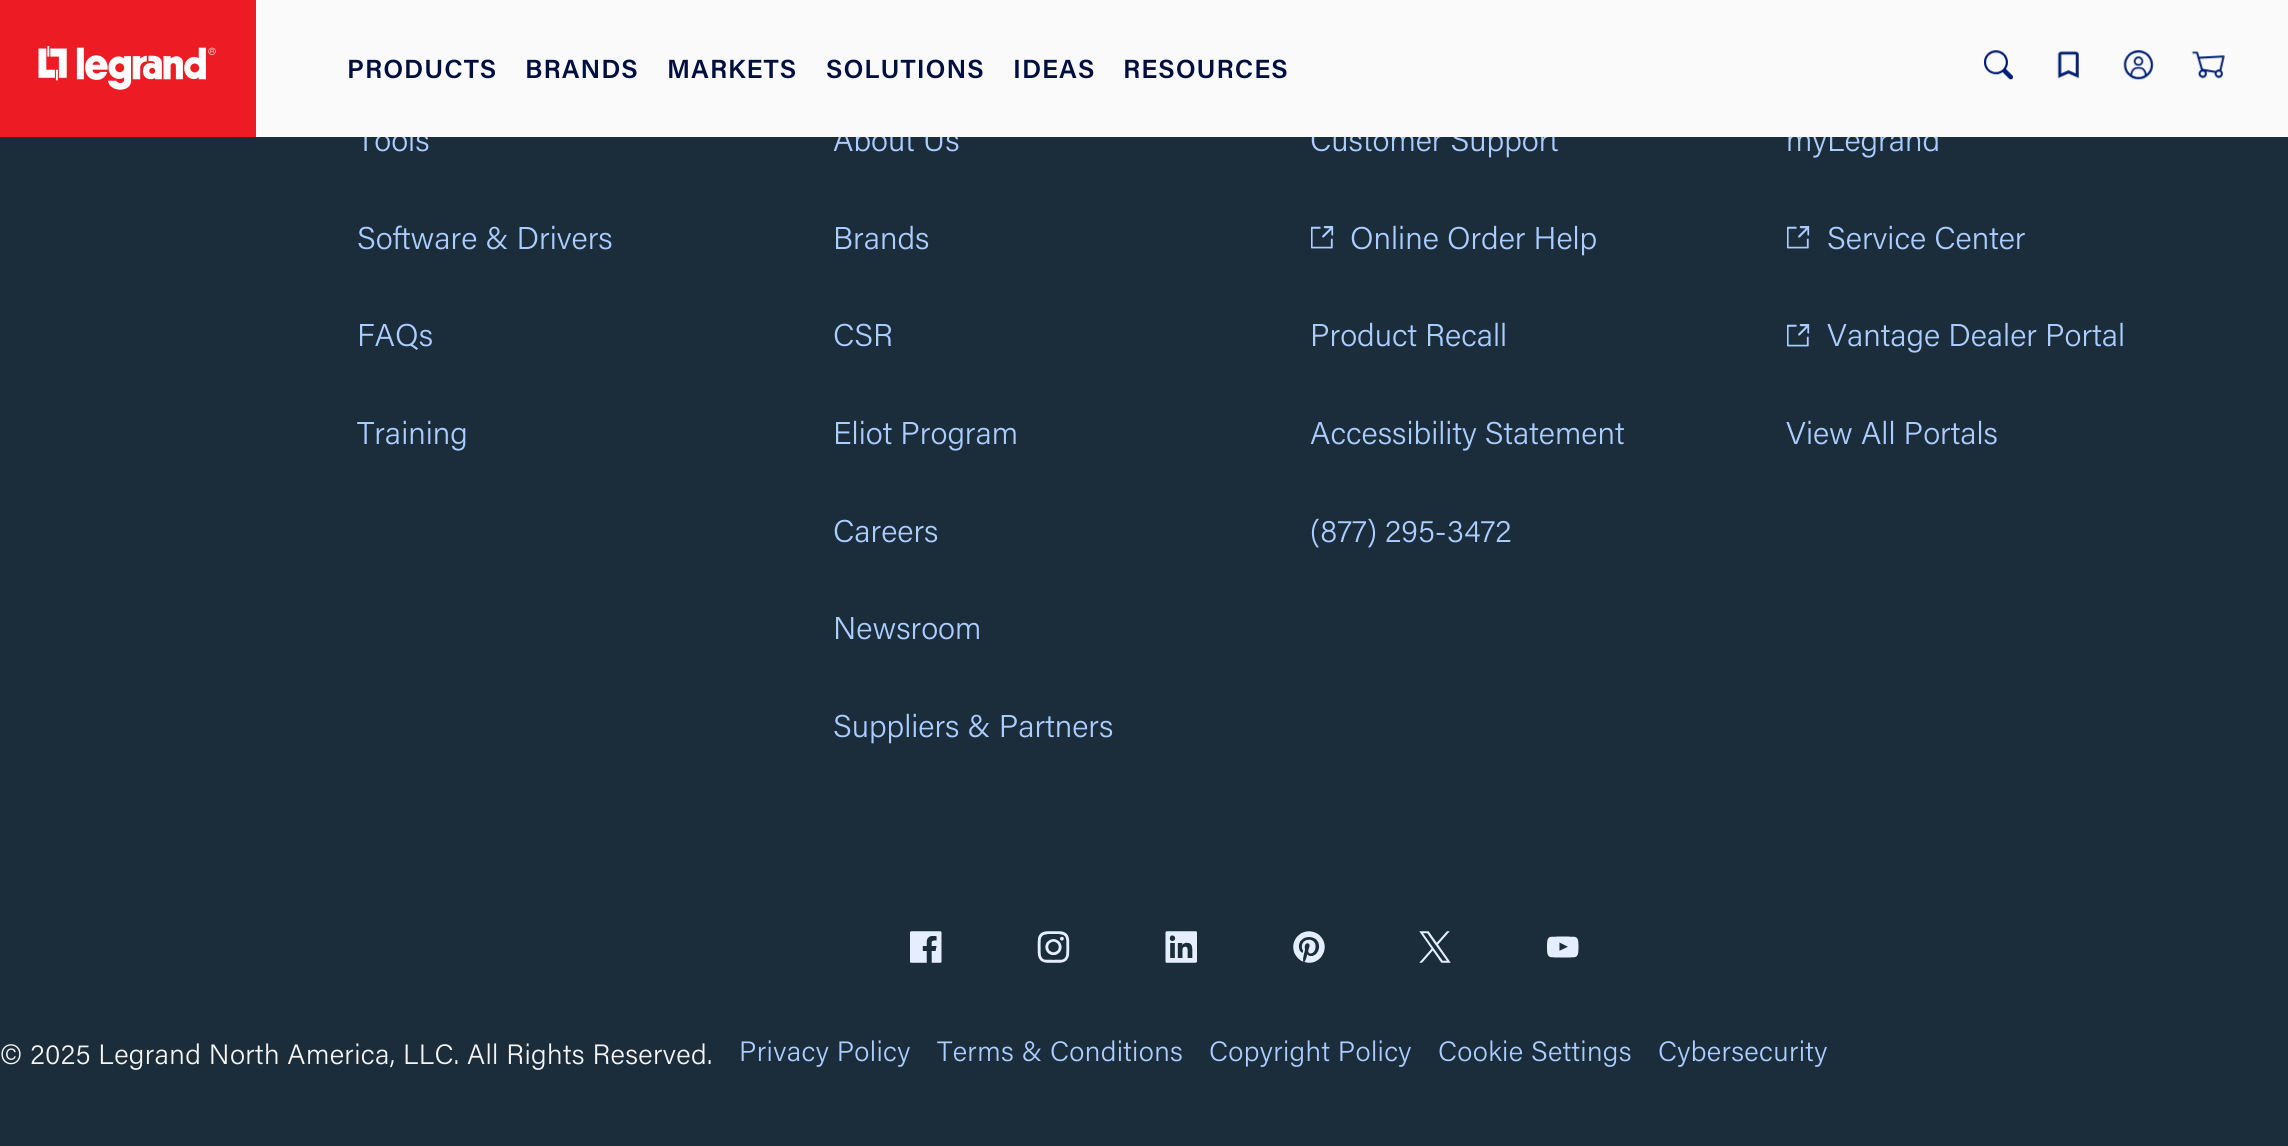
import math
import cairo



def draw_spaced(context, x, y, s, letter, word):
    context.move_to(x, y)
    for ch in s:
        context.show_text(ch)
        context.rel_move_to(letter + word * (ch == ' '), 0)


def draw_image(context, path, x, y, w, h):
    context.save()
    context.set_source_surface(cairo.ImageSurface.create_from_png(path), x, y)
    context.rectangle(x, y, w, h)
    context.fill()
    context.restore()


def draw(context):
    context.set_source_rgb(27 / 255, 45 / 255, 58 / 255)
    context.paint()
    context.set_source_rgb(237 / 255, 28 / 255, 36 / 255)
    context.rectangle(0, 0, 256, 137)
    context.fill()
    draw_image(context, "images/1.png", 38, 46, 178, 44)
    draw_image(context, "images/6.png", 1311, 226, 23, 23)
    draw_image(context, "images/6.png", 1787, 226, 23, 23)
    draw_image(context, "images/6.png", 1787, 324, 23, 23)
    draw_image(context, "images/7.png", 910, 931, 32, 32)
    draw_image(context, "images/8.png", 1037, 931, 33, 32)
    draw_image(context, "images/9.png", 1165, 931, 32, 32)
    draw_image(context, "images/10.png", 1293, 931, 32, 32)
    draw_image(context, "images/11.png", 1419, 931, 32, 32)
    draw_image(context, "images/12.png", 1547, 936, 32, 22)
    context.select_font_face("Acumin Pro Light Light")
    context.set_font_size(31.5)
    context.set_source_rgb(172 / 255, 205 / 255, 1)
    context.move_to(357, 151)
    context.show_text("Tools")
    context.move_to(357, 249)
    context.show_text("Software & Drivers")
    context.move_to(357, 346)
    context.show_text("FAQs")
    context.move_to(357, 444)
    context.show_text("Training")
    context.move_to(833, 151)
    context.show_text("About Us")
    context.move_to(833, 249)
    context.show_text("Brands")
    context.move_to(833, 346)
    context.show_text("CSR")
    context.move_to(833, 444)
    context.show_text("Eliot Program")
    context.move_to(833, 542)
    context.show_text("Careers")
    context.move_to(833, 639)
    context.show_text("Newsroom")
    context.move_to(833, 737)
    context.show_text("Suppliers & Partners")
    context.move_to(1310, 151)
    context.show_text("Customer Support")
    context.move_to(1350, 249)
    context.show_text("Online Order Help")
    context.move_to(1310, 346)
    context.show_text("Product Recall")
    context.move_to(1310, 444)
    context.show_text("Accessibility Statement")
    context.move_to(1310, 542)
    context.show_text("(877) 295-3472")
    context.move_to(1786, 151)
    context.show_text("myLegrand")
    context.set_source_rgb(250 / 255, 250 / 255, 250 / 255)
    context.rectangle(256, 0, 2032, 137)
    context.fill()
    draw_image(context, "images/5.png", 2191, 51, 34, 28)
    draw_image(context, "images/4.png", 2123, 50, 31, 30)
    draw_image(context, "images/3.png", 2057, 51, 22, 28)
    draw_image(context, "images/2.png", 1984, 50, 29, 30)
    context.select_font_face("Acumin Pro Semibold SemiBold")
    context.set_font_size(26.25)
    context.set_source_rgb(0, 15 / 255, 64 / 255)
    draw_spaced(context, 1123, 78, "RESOURCES", 1, 0)
    draw_spaced(context, 1013, 78, "IDEAS", 1, 0)
    draw_spaced(context, 826, 78, "SOLUTIONS", 1, 0)
    draw_spaced(context, 667, 78, "MARKETS", 1, 0)
    draw_spaced(context, 525, 78, "BRANDS", 1, 0)
    draw_spaced(context, 347, 78, "PRODUCTS", 1, 0)
    context.select_font_face("Acumin Pro Light Light")
    context.set_font_size(31.5)
    context.set_source_rgb(172 / 255, 205 / 255, 1)
    context.move_to(1827, 249)
    context.show_text("Service Center")
    context.move_to(1827, 346)
    context.show_text("Vantage Dealer Portal")
    context.move_to(1786, 444)
    context.show_text("View All Portals")
    context.set_font_size(28)
    context.set_source_rgb(246 / 255, 245 / 255, 245 / 255)
    draw_spaced(context, 0, 1064, "© 2025 Legrand North America, LLC. All Rights Reserved.", 0.35, 0)
    context.set_source_rgb(172 / 255, 205 / 255, 1)
    draw_spaced(context, 739, 1061, "Privacy Policy", 0.35, 0)
    draw_spaced(context, 937, 1061, "Terms & Conditions", 0.35, 0)
    draw_spaced(context, 1209, 1061, "Copyright Policy", 0.35, 0)
    draw_spaced(context, 1438, 1061, "Cookie Settings", 0.35, 0)
    draw_spaced(context, 1658, 1061, "Cybersecurity", 0.35, 0)


surface = cairo.ImageSurface(cairo.Format.RGB24, 2288, 1146)
context = cairo.Context(surface)
options = cairo.FontOptions()
options.set_hint_metrics(cairo.HintMetrics.OFF)
options.set_hint_style(cairo.HintStyle.NONE)
context.set_font_options(options)
context.set_miter_limit(4)
draw(context)
surface.write_to_png("out.png")
